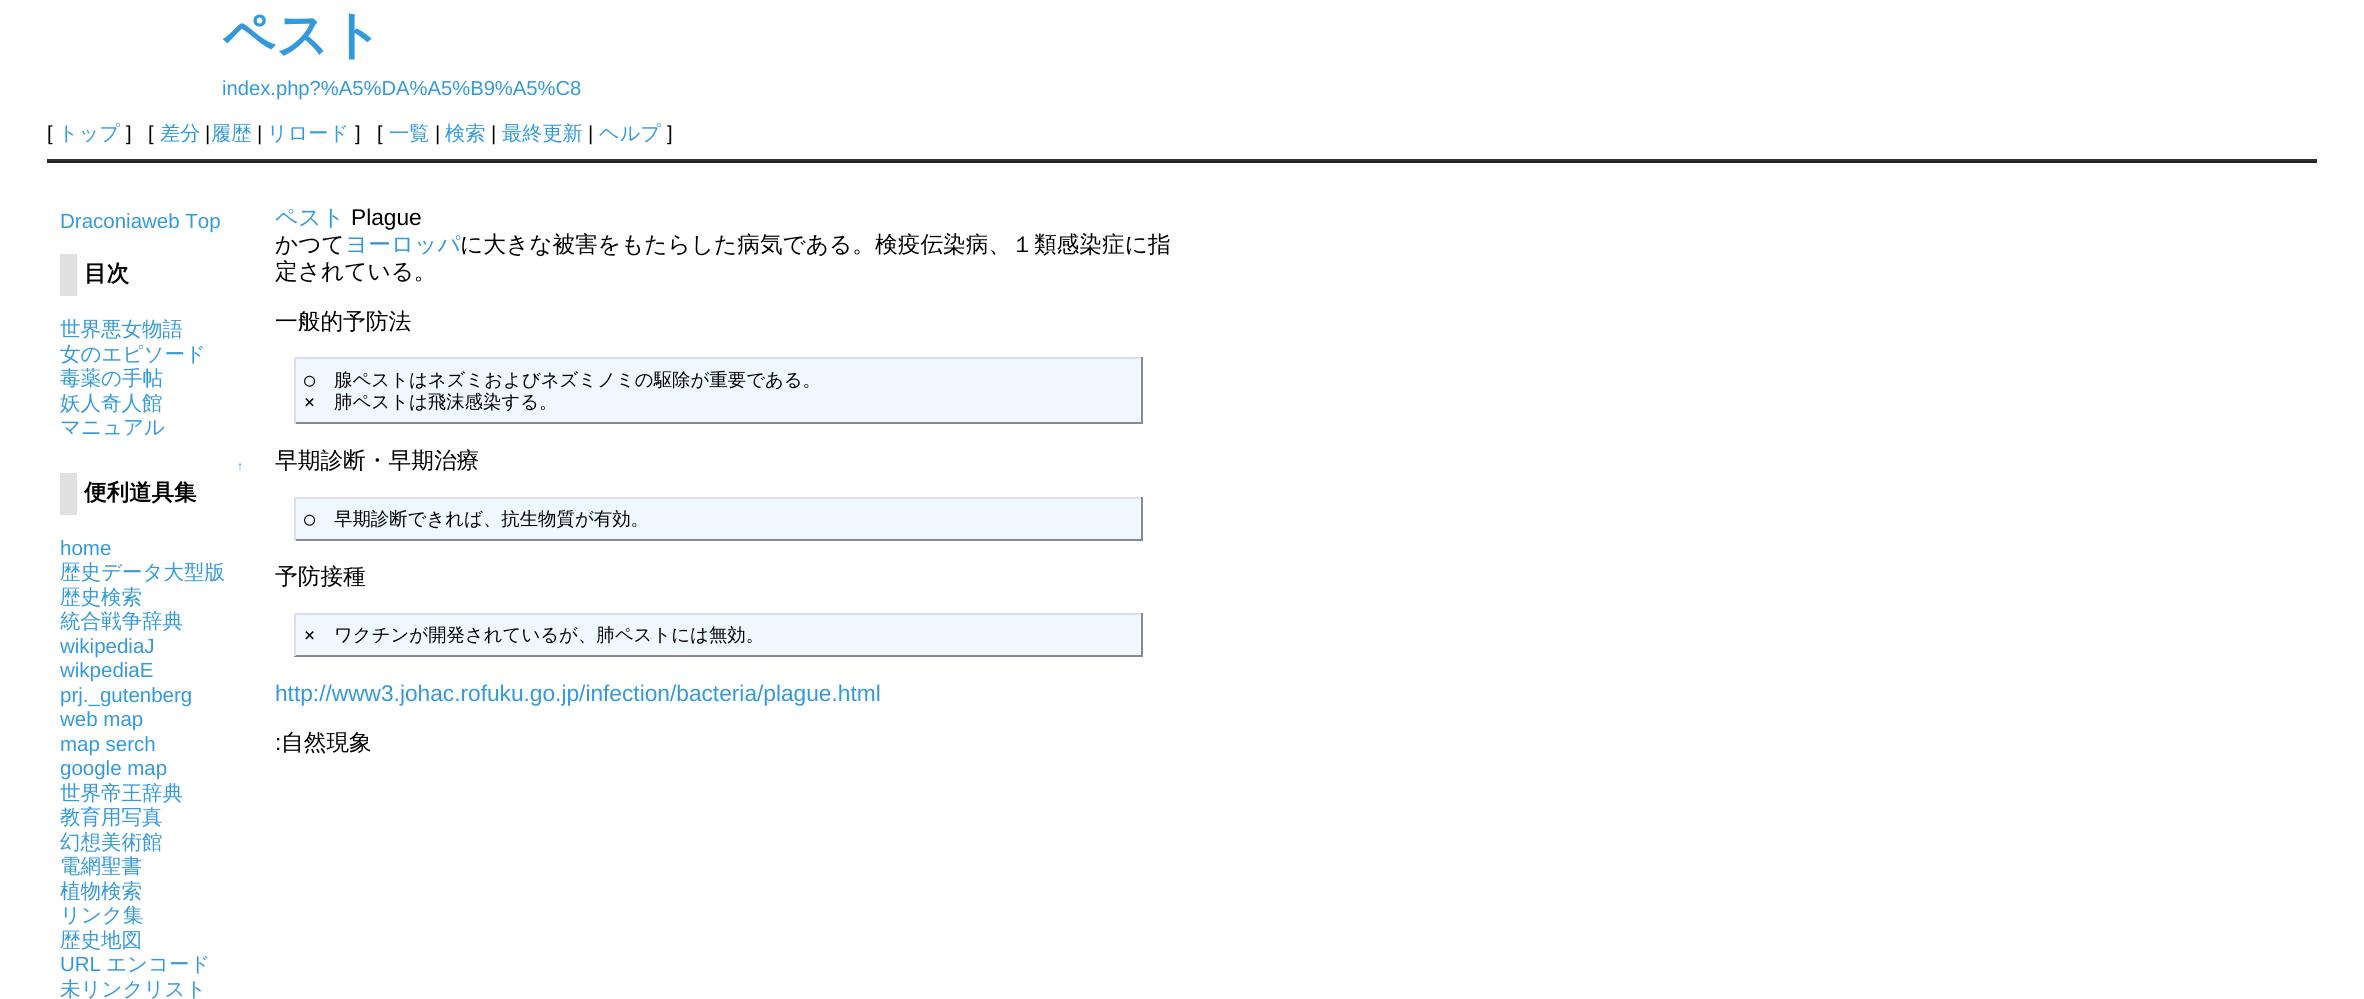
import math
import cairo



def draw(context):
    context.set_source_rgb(1, 1, 1)
    context.paint()
    context.set_source_rgb(51 / 255, 51 / 255, 51 / 255)
    context.rectangle(47, 159, 2270, 2)
    context.fill()
    context.set_source_rgb(34 / 255, 34 / 255, 34 / 255)
    context.rectangle(47, 161, 2270, 2)
    context.fill()
    context.set_source_rgb(224 / 255, 224 / 255, 224 / 255)
    context.rectangle(60, 254, 17, 42)
    context.fill()
    context.rectangle(60, 473, 17, 42)
    context.fill()
    context.set_source_rgb(240 / 255, 248 / 255, 1)
    context.rectangle(296, 359, 845, 63)
    context.fill()
    context.set_source_rgb(221 / 255, 221 / 255, 238 / 255)
    context.rectangle(294, 357, 849, 2)
    context.fill()
    context.set_source_rgb(136 / 255, 136 / 255, 153 / 255)
    context.rectangle(1141, 357, 2, 67)
    context.fill()
    context.rectangle(294, 422, 849, 2)
    context.fill()
    context.set_source_rgb(221 / 255, 221 / 255, 238 / 255)
    context.rectangle(294, 357, 2, 67)
    context.fill()
    context.set_source_rgb(240 / 255, 248 / 255, 1)
    context.rectangle(296, 499, 845, 40)
    context.fill()
    context.set_source_rgb(221 / 255, 221 / 255, 238 / 255)
    context.rectangle(294, 497, 849, 2)
    context.fill()
    context.set_source_rgb(136 / 255, 136 / 255, 153 / 255)
    context.rectangle(1141, 497, 2, 44)
    context.fill()
    context.rectangle(294, 539, 849, 2)
    context.fill()
    context.set_source_rgb(221 / 255, 221 / 255, 238 / 255)
    context.rectangle(294, 497, 2, 44)
    context.fill()
    context.set_source_rgb(240 / 255, 248 / 255, 1)
    context.rectangle(296, 615, 845, 40)
    context.fill()
    context.set_source_rgb(221 / 255, 221 / 255, 238 / 255)
    context.rectangle(294, 613, 849, 2)
    context.fill()
    context.set_source_rgb(136 / 255, 136 / 255, 153 / 255)
    context.rectangle(1141, 613, 2, 43)
    context.fill()
    context.rectangle(294, 655, 849, 2)
    context.fill()
    context.set_source_rgb(221 / 255, 221 / 255, 238 / 255)
    context.rectangle(294, 613, 2, 43)
    context.fill()
    context.select_font_face("WenQuanYi Zen Hei", cairo.FontSlant.NORMAL, cairo.FontWeight.BOLD)
    context.set_font_size(52.5)
    context.set_source_rgb(51 / 255, 153 / 255, 221 / 255)
    context.move_to(222, 53)
    context.show_text("ペスト")
    context.select_font_face("Liberation Sans")
    context.set_font_size(20.2)
    context.move_to(222, 95)
    context.show_text("index.php?%A5%DA%A5%B9%A5%C8")
    context.set_source_rgb(0, 0, 0)
    context.move_to(47, 140)
    context.show_text("[")
    context.select_font_face("WenQuanYi Zen Hei Medium")
    context.set_source_rgb(51 / 255, 153 / 255, 221 / 255)
    context.move_to(58, 140)
    context.show_text("トップ")
    context.select_font_face("Liberation Sans")
    context.set_source_rgb(0, 0, 0)
    context.move_to(126, 140)
    context.show_text("]")
    context.move_to(148, 140)
    context.show_text("[")
    context.select_font_face("WenQuanYi Zen Hei Medium")
    context.set_source_rgb(51 / 255, 153 / 255, 221 / 255)
    context.move_to(160, 140)
    context.show_text("差分")
    context.select_font_face("Liberation Sans")
    context.set_source_rgb(0, 0, 0)
    context.move_to(205, 140)
    context.show_text("|")
    context.select_font_face("WenQuanYi Zen Hei Medium")
    context.set_source_rgb(51 / 255, 153 / 255, 221 / 255)
    context.move_to(211, 140)
    context.show_text("履歴")
    context.select_font_face("Liberation Sans")
    context.set_source_rgb(0, 0, 0)
    context.move_to(257, 140)
    context.show_text("|")
    context.select_font_face("WenQuanYi Zen Hei Medium")
    context.set_source_rgb(51 / 255, 153 / 255, 221 / 255)
    context.move_to(267, 140)
    context.show_text("リロード")
    context.select_font_face("Liberation Sans")
    context.set_source_rgb(0, 0, 0)
    context.move_to(355, 140)
    context.show_text("]")
    context.move_to(377, 140)
    context.show_text("[")
    context.select_font_face("WenQuanYi Zen Hei Medium")
    context.set_source_rgb(51 / 255, 153 / 255, 221 / 255)
    context.move_to(389, 140)
    context.show_text("一覧")
    context.select_font_face("Liberation Sans")
    context.set_source_rgb(0, 0, 0)
    context.move_to(435, 140)
    context.show_text("|")
    context.select_font_face("WenQuanYi Zen Hei Medium")
    context.set_source_rgb(51 / 255, 153 / 255, 221 / 255)
    context.move_to(445, 140)
    context.show_text("検索")
    context.select_font_face("Liberation Sans")
    context.set_source_rgb(0, 0, 0)
    context.move_to(491, 140)
    context.show_text("|")
    context.select_font_face("WenQuanYi Zen Hei Medium")
    context.set_source_rgb(51 / 255, 153 / 255, 221 / 255)
    context.move_to(502, 140)
    context.show_text("最終更新")
    context.select_font_face("Liberation Sans")
    context.set_source_rgb(0, 0, 0)
    context.move_to(588, 140)
    context.show_text("|")
    context.select_font_face("WenQuanYi Zen Hei Medium")
    context.set_source_rgb(51 / 255, 153 / 255, 221 / 255)
    context.move_to(599, 140)
    context.show_text("ヘルプ")
    context.select_font_face("Liberation Sans")
    context.set_source_rgb(0, 0, 0)
    context.move_to(667, 140)
    context.show_text("]")
    context.set_font_size(20.5)
    context.set_source_rgb(51 / 255, 153 / 255, 221 / 255)
    context.move_to(60, 228)
    context.show_text("Draconiaweb Top")
    context.select_font_face("WenQuanYi Zen Hei", cairo.FontSlant.NORMAL, cairo.FontWeight.BOLD)
    context.set_font_size(22.5)
    context.set_source_rgb(0, 0, 0)
    context.move_to(84, 281)
    context.show_text("目次")
    context.select_font_face("WenQuanYi Zen Hei Medium")
    context.set_font_size(20.5)
    context.set_source_rgb(51 / 255, 153 / 255, 221 / 255)
    context.move_to(60, 336)
    context.show_text("世界悪女物語")
    context.move_to(60, 361)
    context.show_text("女のエピソード")
    context.move_to(60, 385)
    context.show_text("毒薬の手帖")
    context.move_to(60, 410)
    context.show_text("妖人奇人館")
    context.move_to(60, 434)
    context.show_text("マニュアル")
    context.select_font_face("Liberation Sans")
    context.set_font_size(12)
    context.move_to(237, 470)
    context.show_text("↑")
    context.select_font_face("WenQuanYi Zen Hei", cairo.FontSlant.NORMAL, cairo.FontWeight.BOLD)
    context.set_font_size(22.5)
    context.set_source_rgb(0, 0, 0)
    context.move_to(84, 500)
    context.show_text("便利道具集")
    context.select_font_face("Liberation Sans")
    context.set_font_size(20.5)
    context.set_source_rgb(51 / 255, 153 / 255, 221 / 255)
    context.move_to(60, 555)
    context.show_text("home")
    context.select_font_face("WenQuanYi Zen Hei Medium")
    context.move_to(60, 579)
    context.show_text("歴史データ大型版")
    context.move_to(60, 604)
    context.show_text("歴史検索")
    context.move_to(60, 628)
    context.show_text("統合戦争辞典")
    context.select_font_face("Liberation Sans")
    context.move_to(60, 653)
    context.show_text("wikipediaJ")
    context.move_to(60, 677)
    context.show_text("wikpediaE")
    context.move_to(60, 702)
    context.show_text("prj._gutenberg")
    context.move_to(60, 726)
    context.show_text("web map")
    context.move_to(60, 751)
    context.show_text("map serch")
    context.move_to(60, 775)
    context.show_text("google map")
    context.select_font_face("WenQuanYi Zen Hei Medium")
    context.move_to(60, 800)
    context.show_text("世界帝王辞典")
    context.move_to(60, 824)
    context.show_text("教育用写真")
    context.move_to(60, 849)
    context.show_text("幻想美術館")
    context.move_to(60, 873)
    context.show_text("電網聖書")
    context.move_to(60, 898)
    context.show_text("植物検索")
    context.move_to(60, 922)
    context.show_text("リンク集")
    context.move_to(60, 947)
    context.show_text("歴史地図")
    context.select_font_face("Liberation Sans")
    context.move_to(60, 971)
    context.show_text("URL")
    context.select_font_face("WenQuanYi Zen Hei Medium")
    context.move_to(106, 971)
    context.show_text("エンコード")
    context.move_to(60, 996)
    context.show_text("未リンクリスト")
    context.set_font_size(22.7)
    context.move_to(275, 225)
    context.show_text("ペスト")
    context.select_font_face("Liberation Sans")
    context.set_source_rgb(0, 0, 0)
    context.move_to(351, 225)
    context.show_text("Plague")
    context.select_font_face("WenQuanYi Zen Hei Medium")
    context.move_to(275, 252)
    context.show_text("かつて")
    context.set_source_rgb(51 / 255, 153 / 255, 221 / 255)
    context.move_to(345, 252)
    context.show_text("ヨーロッパ")
    context.set_source_rgb(0, 0, 0)
    context.move_to(460, 252)
    context.show_text("に大きな被害をもたらした病気である。検疫伝染病、１類感染症に指")
    context.move_to(275, 279)
    context.show_text("定されている。")
    context.move_to(275, 329)
    context.show_text("一般的予防法")
    context.select_font_face("DejaVu Sans Mono")
    context.set_font_size(18.4)
    context.move_to(304, 386)
    context.show_text("○")
    context.select_font_face("WenQuanYi Zen Hei Medium")
    context.move_to(334, 386)
    context.show_text("腺ペストはネズミおよびネズミノミの駆除が重要である。")
    context.select_font_face("DejaVu Sans Mono")
    context.move_to(304, 408)
    context.show_text("×")
    context.select_font_face("WenQuanYi Zen Hei Medium")
    context.move_to(334, 408)
    context.show_text("肺ペストは飛沫感染する。")
    context.set_font_size(22.7)
    context.move_to(275, 468)
    context.show_text("早期診断・早期治療")
    context.select_font_face("DejaVu Sans Mono")
    context.set_font_size(18.4)
    context.move_to(304, 525)
    context.show_text("○")
    context.select_font_face("WenQuanYi Zen Hei Medium")
    context.move_to(334, 525)
    context.show_text("早期診断できれば、抗生物質が有効。")
    context.set_font_size(22.7)
    context.move_to(275, 584)
    context.show_text("予防接種")
    context.select_font_face("DejaVu Sans Mono")
    context.set_font_size(18.4)
    context.move_to(304, 641)
    context.show_text("×")
    context.select_font_face("WenQuanYi Zen Hei Medium")
    context.move_to(334, 641)
    context.show_text("ワクチンが開発されているが、肺ペストには無効。")
    context.select_font_face("Liberation Sans")
    context.set_font_size(22.7)
    context.set_source_rgb(51 / 255, 153 / 255, 221 / 255)
    context.move_to(275, 701)
    context.show_text("http://www3.johac.rofuku.go.jp/infection/bacteria/plague.html")
    context.set_source_rgb(0, 0, 0)
    context.move_to(275, 750)
    context.show_text(":")
    context.select_font_face("WenQuanYi Zen Hei Medium")
    context.move_to(281, 750)
    context.show_text("自然現象")


surface = cairo.ImageSurface(cairo.Format.RGB24, 2364, 999)
context = cairo.Context(surface)
options = cairo.FontOptions()
options.set_hint_metrics(cairo.HintMetrics.OFF)
options.set_hint_style(cairo.HintStyle.NONE)
context.set_font_options(options)
context.set_miter_limit(4)
draw(context)
surface.write_to_png("out.png")
